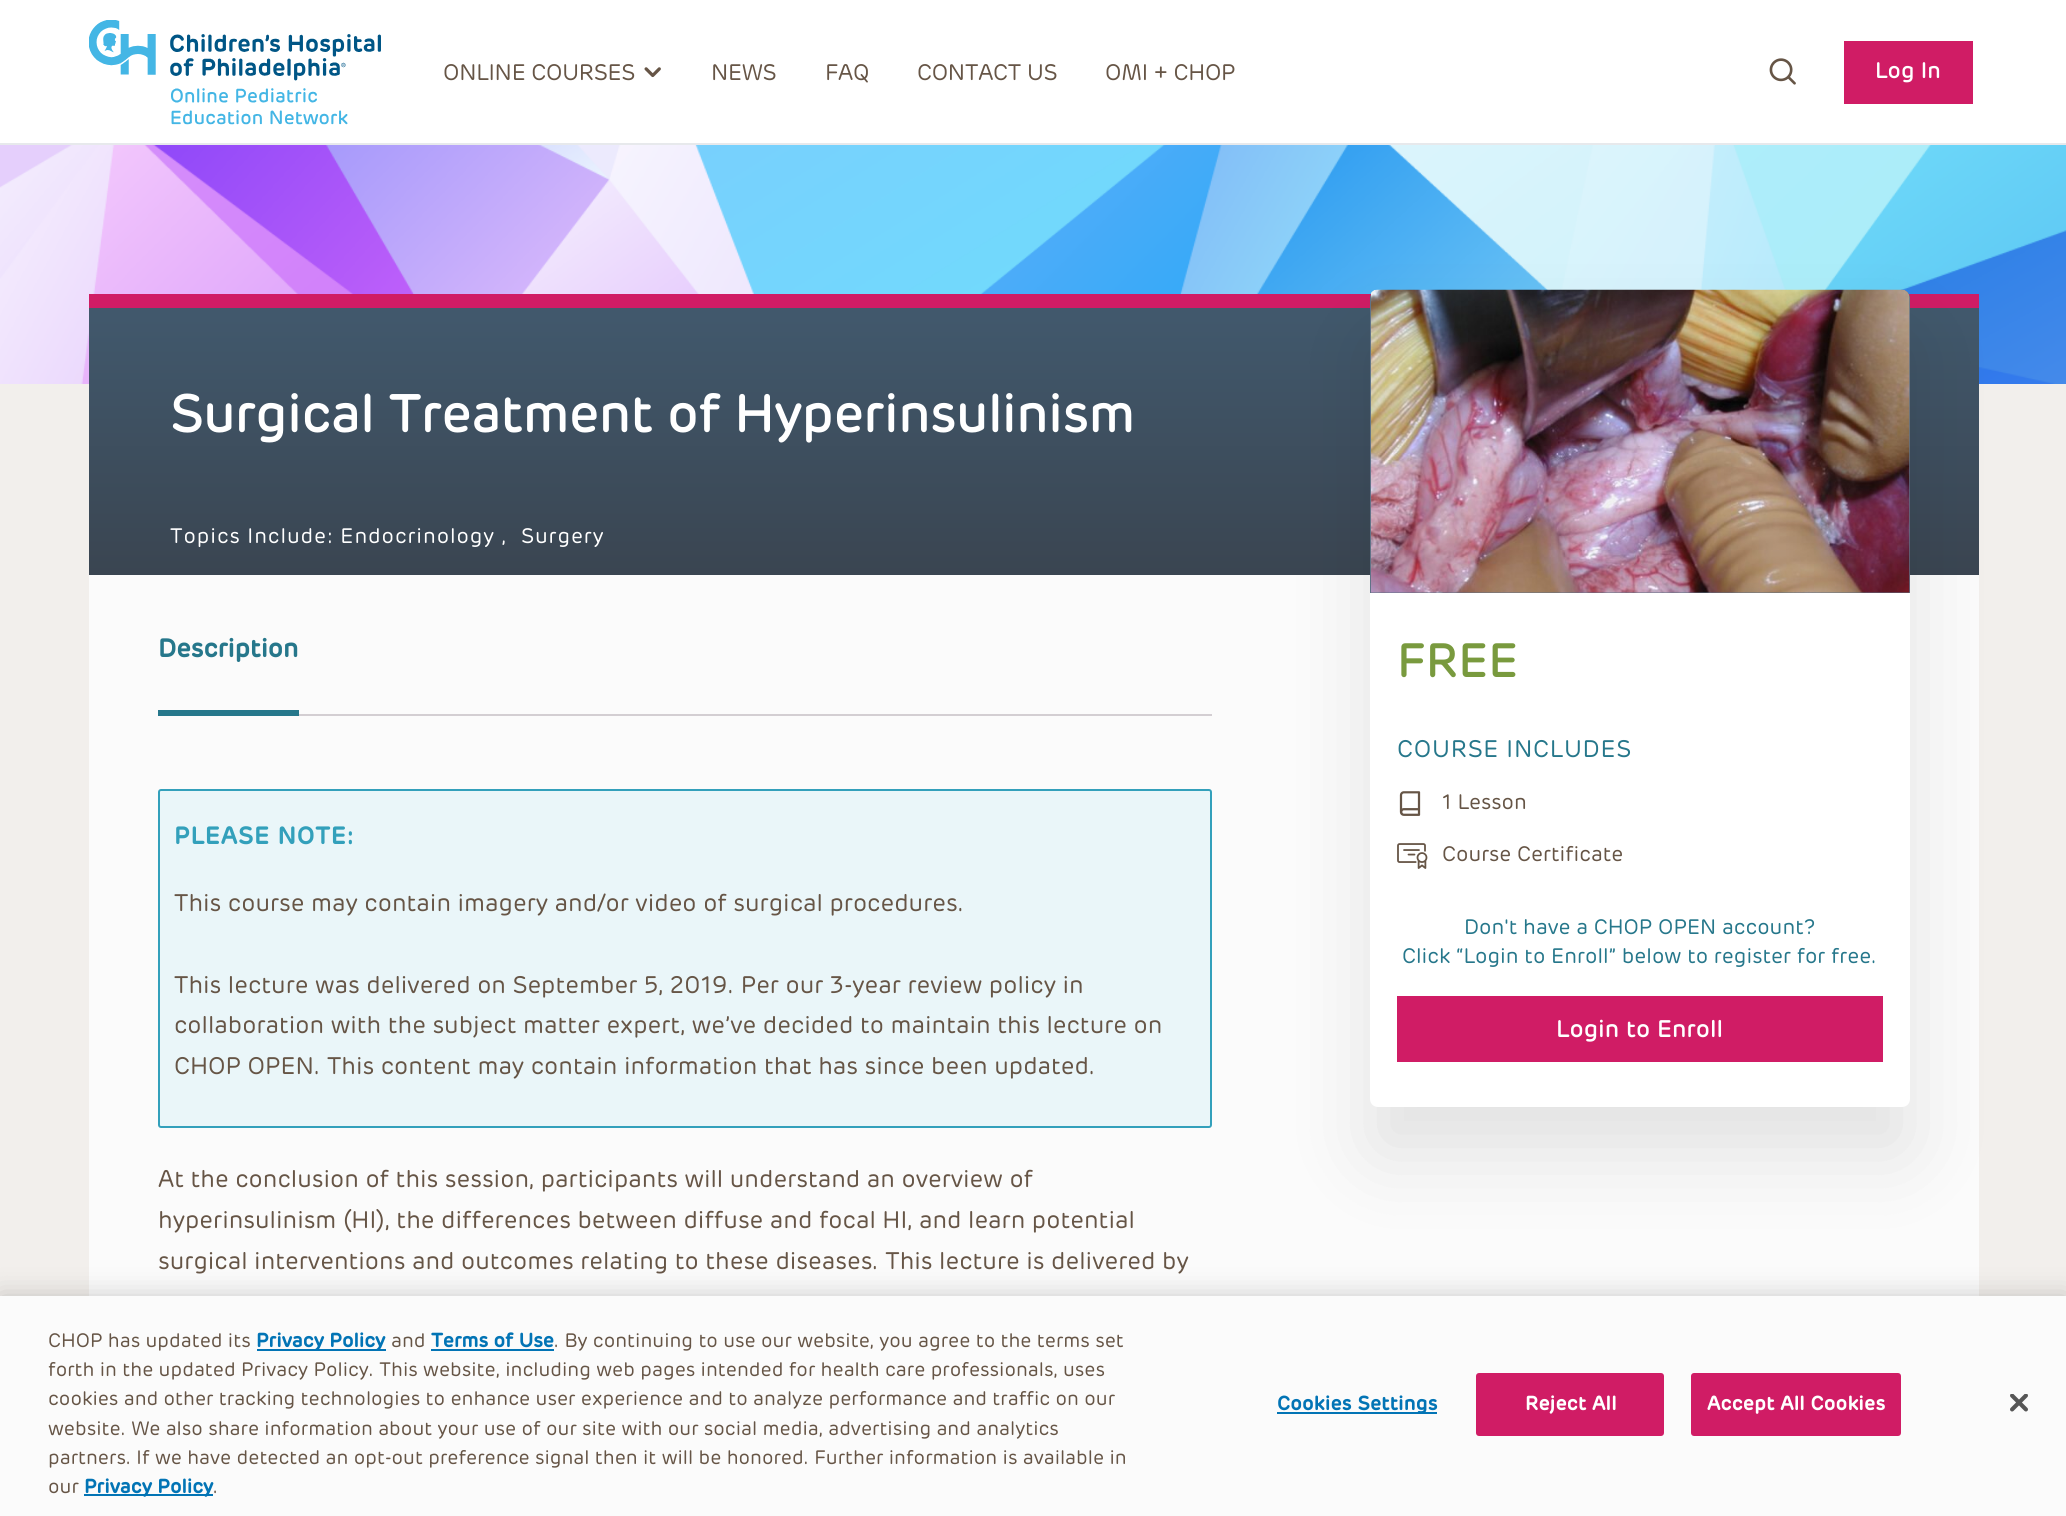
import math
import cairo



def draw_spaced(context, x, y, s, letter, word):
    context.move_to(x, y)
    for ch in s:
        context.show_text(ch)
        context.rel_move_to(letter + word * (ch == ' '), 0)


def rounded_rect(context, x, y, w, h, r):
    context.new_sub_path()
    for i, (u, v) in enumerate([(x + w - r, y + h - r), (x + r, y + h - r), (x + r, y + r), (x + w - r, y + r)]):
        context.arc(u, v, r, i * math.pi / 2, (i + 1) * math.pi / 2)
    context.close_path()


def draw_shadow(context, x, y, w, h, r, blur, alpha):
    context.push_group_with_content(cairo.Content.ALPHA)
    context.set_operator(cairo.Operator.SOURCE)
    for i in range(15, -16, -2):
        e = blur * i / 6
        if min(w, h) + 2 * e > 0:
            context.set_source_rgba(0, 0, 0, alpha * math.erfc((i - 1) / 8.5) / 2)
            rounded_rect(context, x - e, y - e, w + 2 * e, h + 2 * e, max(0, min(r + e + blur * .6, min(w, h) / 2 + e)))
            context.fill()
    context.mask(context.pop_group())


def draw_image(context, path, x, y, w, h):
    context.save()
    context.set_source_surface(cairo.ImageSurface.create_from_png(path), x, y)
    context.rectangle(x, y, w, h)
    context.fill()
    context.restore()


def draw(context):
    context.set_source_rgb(242 / 255, 239 / 255, 236 / 255)
    context.paint()
    context.set_source_rgb(1, 1, 1)
    context.rectangle(0, 0, 2066, 143)
    context.fill()
    context.set_source_rgb(231 / 255, 233 / 255, 236 / 255)
    context.rectangle(0, 143, 2066, 2)
    context.fill()
    draw_image(context, "images/1.png", 89, 20, 292, 105)
    draw_image(context, "images/2.png", 644, 67, 17, 11)
    draw_image(context, "images/3.png", 1769, 58, 27, 27)
    context.set_source_rgb(208 / 255, 28 / 255, 101 / 255)
    context.rectangle(1844, 41, 129, 63)
    context.fill()
    draw_image(context, "images/4.png", 0, 145, 2066, 239)
    context.set_source_rgb(251 / 255, 251 / 255, 251 / 255)
    context.rectangle(89, 575, 1890, 721)
    context.fill()
    context.set_source_rgb(208 / 255, 28 / 255, 101 / 255)
    context.rectangle(89, 294, 1890, 14)
    context.fill()
    gradient = cairo.LinearGradient(1034, 307, 1034, 575)
    gradient.add_color_stop_rgba(0.04, 65 / 255, 88 / 255, 108 / 255, 1)
    gradient.add_color_stop_rgba(1, 58 / 255, 69 / 255, 81 / 255, 1)
    context.set_source(gradient)
    context.rectangle(89, 308, 1890, 267)
    context.fill()
    context.set_source_rgb(38 / 255, 119 / 255, 139 / 255)
    context.rectangle(158, 710, 141, 6)
    context.fill()
    context.set_source_rgb(211 / 255, 206 / 255, 210 / 255)
    context.rectangle(299, 714, 913, 2)
    context.fill()
    context.set_source_rgb(234 / 255, 246 / 255, 249 / 255)
    rounded_rect(context, 159, 790, 1052, 337, 2)
    context.fill_preserve()
    context.set_source_rgb(51 / 255, 160 / 255, 187 / 255)
    context.stroke()
    context.set_source_rgb(0, 0, 0)
    draw_shadow(context, 1370, 338, 540, 817, 8, 40.5, 0.1)
    context.set_source_rgb(96 / 255, 115 / 255, 135 / 255)
    context.new_path()
    context.move_to(1378, 290)
    context.line_to(1902, 290)
    context.curve_to(1906.5, 290, 1910, 293.5, 1910, 298)
    context.line_to(1910, 593)
    context.line_to(1370, 593)
    context.line_to(1370, 298)
    context.curve_to(1370, 293.5, 1373.5, 290, 1378, 290)
    context.close_path()
    context.fill()
    draw_image(context, "images/5.png", 1371, 289, 539, 304)
    context.set_source_rgb(1, 1, 1)
    context.new_path()
    context.move_to(1370, 593)
    context.line_to(1910, 593)
    context.line_to(1910, 1099)
    context.curve_to(1910, 1103.5, 1906.5, 1107, 1902, 1107)
    context.line_to(1378, 1107)
    context.curve_to(1373.5, 1107, 1370, 1103.5, 1370, 1099)
    context.close_path()
    context.fill()
    draw_image(context, "images/6.png", 1399, 791, 22, 25)
    draw_image(context, "images/7.png", 1397, 843, 31, 26)
    context.set_source_rgb(208 / 255, 28 / 255, 101 / 255)
    context.rectangle(1397, 996, 486, 66)
    context.fill()
    context.set_source_rgb(0, 0, 0)
    draw_shadow(context, 0, 1296, 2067, 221, 0, 13.5, 0.2)
    context.set_source_rgb(251 / 255, 251 / 255, 251 / 255)
    context.rectangle(0, 1296, 2066, 220)
    context.fill()
    context.set_source_rgb(2 / 255, 116 / 255, 181 / 255)
    context.rectangle(257, 1349, 129, 2)
    context.fill()
    context.rectangle(431, 1349, 123, 2)
    context.fill()
    context.rectangle(84, 1494, 129, 2)
    context.fill()
    context.rectangle(1277, 1412, 160, 2)
    context.fill()
    context.set_source_rgb(208 / 255, 28 / 255, 101 / 255)
    rounded_rect(context, 1477, 1374, 186, 61, 2)
    context.fill_preserve()
    context.stroke()
    rounded_rect(context, 1692, 1374, 208, 61, 2)
    context.fill_preserve()
    context.stroke()
    draw_image(context, "images/8.png", 2010, 1394, 18, 18)
    context.select_font_face("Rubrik")
    context.set_font_size(22.5)
    context.set_source_rgb(102 / 255, 85 / 255, 70 / 255)
    draw_spaced(context, 443, 80, "ONLINE COURSES", -0.25, 0)
    draw_spaced(context, 711, 80, "NEWS", -0.25, 0)
    draw_spaced(context, 825, 80, "FAQ", -0.25, 0)
    draw_spaced(context, 917, 80, "CONTACT US", -0.25, 0)
    draw_spaced(context, 1105, 80, "OMI + CHOP", -0.25, 0)
    context.select_font_face("Rubrik Medium")
    context.set_source_rgb(1, 1, 1)
    context.move_to(1875, 78)
    context.show_text("Log In")
    context.set_font_size(54)
    draw_spaced(context, 170, 432, "Surgical Treatment of Hyperinsulinism", -0.7, 0)
    context.select_font_face("Rubrik")
    context.set_font_size(21)
    draw_spaced(context, 170, 543, "Topics Include: Endocrinology ,", 0.9, 0)
    draw_spaced(context, 521, 543, "Surgery", 0.9, 0)
    context.select_font_face("Rubrik", cairo.FontSlant.NORMAL, cairo.FontWeight.BOLD)
    context.set_font_size(25.5)
    context.set_source_rgb(38 / 255, 119 / 255, 139 / 255)
    context.move_to(158, 657)
    context.show_text("Description")
    context.set_font_size(24)
    context.set_source_rgb(51 / 255, 160 / 255, 187 / 255)
    draw_spaced(context, 174, 844, "PLEASE NOTE:", 0.9, 0)
    context.select_font_face("Rubrik")
    context.set_source_rgb(102 / 255, 85 / 255, 70 / 255)
    context.move_to(174, 911)
    context.show_text("This course may contain imagery and/or video of surgical procedures.")
    context.move_to(174, 993)
    context.show_text("This lecture was delivered on September 5, 2019. Per our 3-year review policy in")
    context.move_to(174, 1033)
    context.show_text("collaboration with the subject matter expert, we’ve decided to maintain this lecture on")
    context.move_to(174, 1074)
    context.show_text("CHOP OPEN. This content may contain information that has since been updated.")
    context.move_to(158, 1187)
    context.show_text("At the conclusion of this session, participants will understand an overview of")
    context.move_to(158, 1228)
    context.show_text("hyperinsulinism (HI), the differences between diffuse and focal HI, and learn potential")
    context.move_to(158, 1269)
    context.show_text("surgical interventions and outcomes relating to these diseases. This lecture is delivered by")
    context.select_font_face("Rubrik Medium")
    context.set_font_size(48)
    context.set_source_rgb(121 / 255, 154 / 255, 62 / 255)
    context.move_to(1397, 677)
    context.show_text("FREE")
    context.select_font_face("Rubrik")
    context.set_font_size(24)
    context.set_source_rgb(38 / 255, 119 / 255, 139 / 255)
    draw_spaced(context, 1397, 757, "COURSE INCLUDES", 0.75, 0)
    context.set_font_size(21)
    context.set_source_rgb(102 / 255, 85 / 255, 70 / 255)
    context.move_to(1442, 809)
    context.show_text("1 Lesson")
    context.move_to(1442, 861)
    context.show_text("Course Certificate")
    context.set_source_rgb(38 / 255, 119 / 255, 139 / 255)
    context.move_to(1464, 934)
    context.show_text("Don't have a CHOP OPEN account?")
    context.move_to(1402, 963)
    context.show_text("Click “Login to Enroll” below to register for free.")
    context.select_font_face("Rubrik Medium")
    context.set_font_size(24)
    context.set_source_rgb(1, 1, 1)
    context.move_to(1556, 1037)
    context.show_text("Login to Enroll")
    context.select_font_face("Rubrik")
    context.set_font_size(19.5)
    context.set_source_rgb(102 / 255, 85 / 255, 70 / 255)
    context.move_to(48, 1347)
    context.show_text("CHOP has updated its")
    context.select_font_face("Rubrik", cairo.FontSlant.NORMAL, cairo.FontWeight.BOLD)
    context.set_source_rgb(2 / 255, 116 / 255, 181 / 255)
    context.move_to(256, 1347)
    context.show_text("Privacy Policy")
    context.select_font_face("Rubrik")
    context.set_source_rgb(102 / 255, 85 / 255, 70 / 255)
    context.move_to(391, 1347)
    context.show_text("and")
    context.select_font_face("Rubrik", cairo.FontSlant.NORMAL, cairo.FontWeight.BOLD)
    context.set_source_rgb(2 / 255, 116 / 255, 181 / 255)
    context.move_to(431, 1347)
    context.show_text("Terms of Use")
    context.select_font_face("Rubrik")
    context.set_source_rgb(102 / 255, 85 / 255, 70 / 255)
    context.move_to(554, 1347)
    context.show_text(". By continuing to use our website, you agree to the terms set")
    context.move_to(48, 1376)
    context.show_text("forth in the updated Privacy Policy. This website, including web pages intended for health care professionals, uses")
    context.move_to(48, 1405)
    context.show_text("cookies and other tracking technologies to enhance user experience and to analyze performance and traffic on our")
    context.move_to(48, 1435)
    context.show_text("website. We also share information about your use of our site with our social media, advertising and analytics")
    context.move_to(48, 1464)
    context.show_text("partners. If we have detected an opt-out preference signal then it will be honored. Further information is available in")
    context.move_to(48, 1493)
    context.show_text("our")
    context.select_font_face("Rubrik", cairo.FontSlant.NORMAL, cairo.FontWeight.BOLD)
    context.set_source_rgb(2 / 255, 116 / 255, 181 / 255)
    context.move_to(84, 1493)
    context.show_text("Privacy Policy")
    context.select_font_face("Rubrik")
    context.set_source_rgb(102 / 255, 85 / 255, 70 / 255)
    context.move_to(213, 1493)
    context.show_text(".")
    context.select_font_face("Rubrik", cairo.FontSlant.NORMAL, cairo.FontWeight.BOLD)
    context.set_source_rgb(2 / 255, 116 / 255, 181 / 255)
    draw_spaced(context, 1277, 1410, "Cookies Settings", 0.25, 0)
    context.set_source_rgb(1, 1, 1)
    draw_spaced(context, 1525, 1410, "Reject All", 0.25, 0)
    draw_spaced(context, 1707, 1410, "Accept All Cookies", 0.25, 0)


surface = cairo.ImageSurface(cairo.Format.RGB24, 2066, 1516)
context = cairo.Context(surface)
options = cairo.FontOptions()
options.set_hint_metrics(cairo.HintMetrics.OFF)
options.set_hint_style(cairo.HintStyle.NONE)
context.set_font_options(options)
context.set_miter_limit(4)
draw(context)
surface.write_to_png("out.png")
